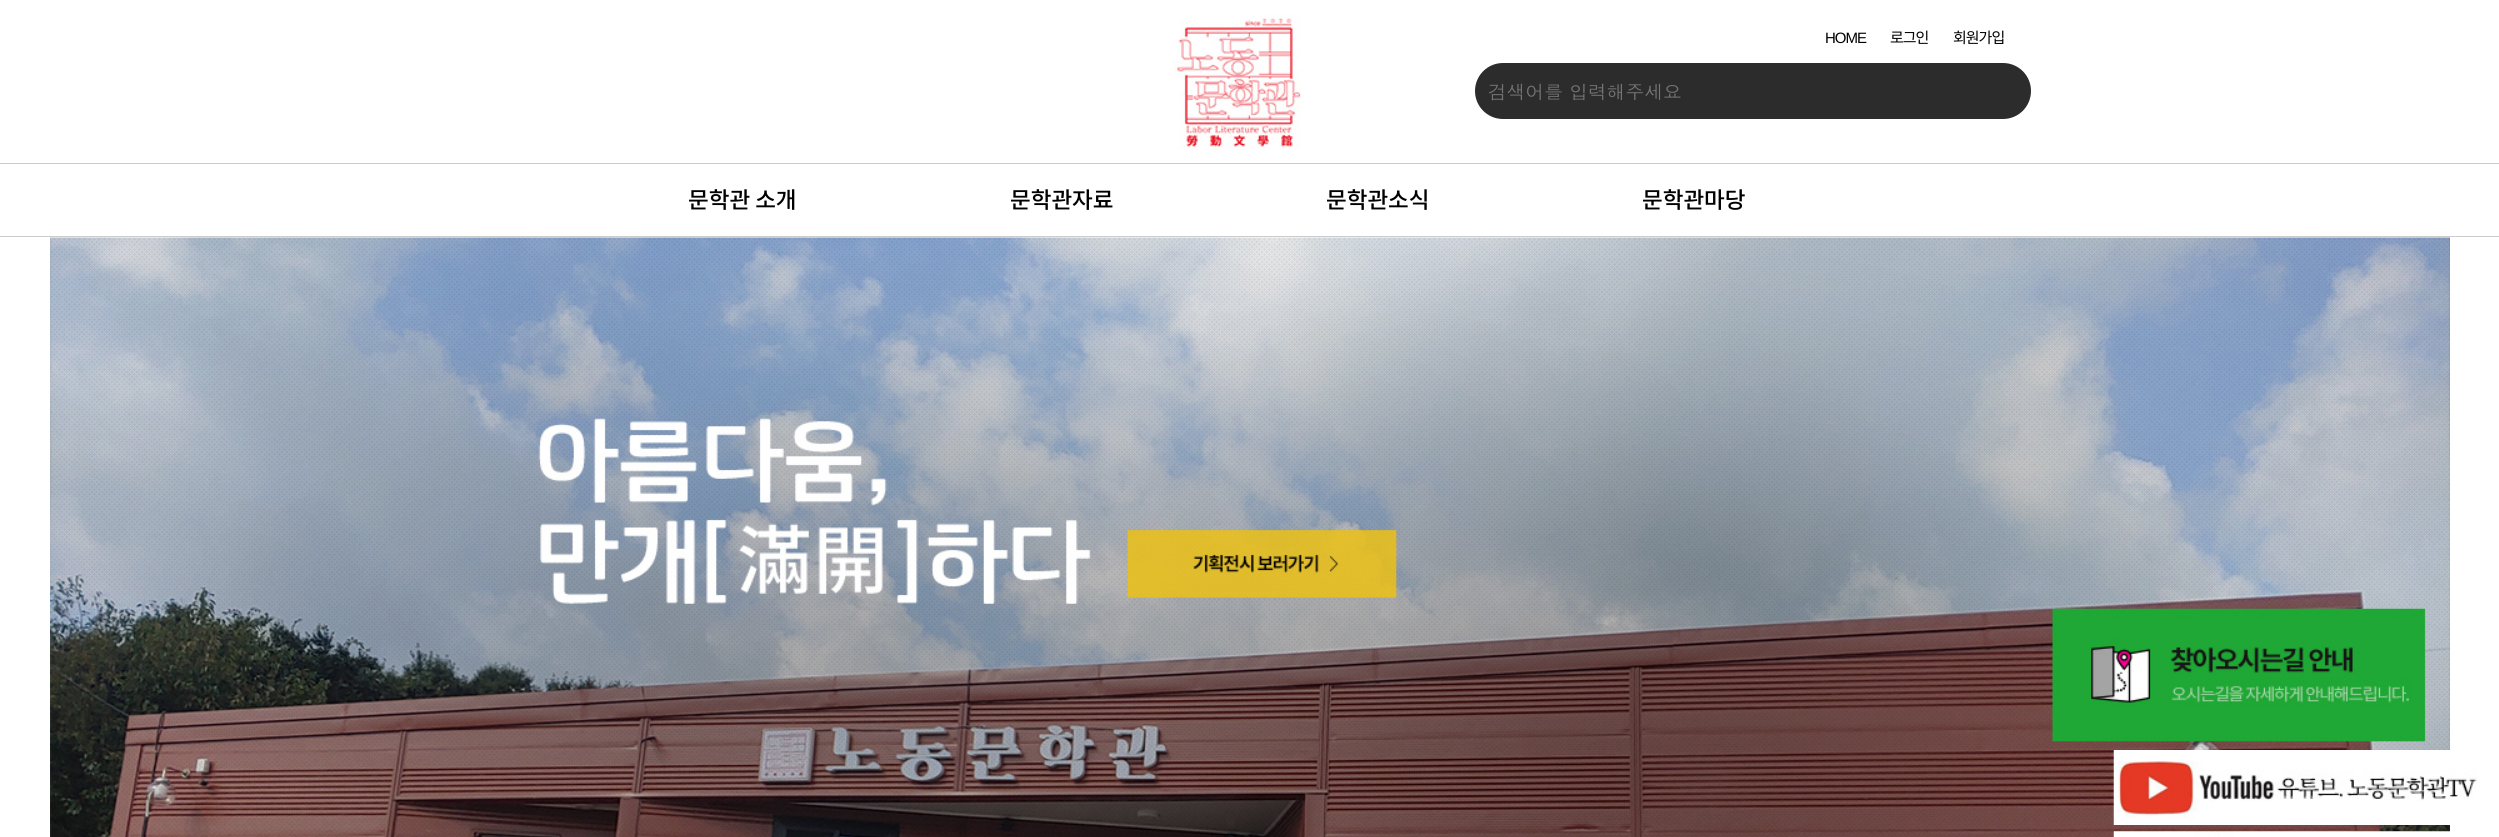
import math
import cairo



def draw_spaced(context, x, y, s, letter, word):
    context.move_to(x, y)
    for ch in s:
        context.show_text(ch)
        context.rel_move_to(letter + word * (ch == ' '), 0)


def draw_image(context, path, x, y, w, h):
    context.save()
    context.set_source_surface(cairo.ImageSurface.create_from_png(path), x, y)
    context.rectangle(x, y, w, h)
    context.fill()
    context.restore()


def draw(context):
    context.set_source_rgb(1, 1, 1)
    context.paint()
    draw_image(context, "images/1.png", 1173, 14, 128, 136)
    context.set_source_rgb(44 / 255, 44 / 255, 44 / 255)
    context.new_path()
    context.move_to(1503, 63)
    context.line_to(1956, 63)
    context.line_to(1956, 119)
    context.line_to(1503, 119)
    context.curve_to(1487.5, 119, 1475, 106.5, 1475, 91)
    context.curve_to(1475, 75.5, 1487.5, 63, 1503, 63)
    context.close_path()
    context.fill()
    context.new_path()
    context.move_to(1956, 63)
    context.line_to(2003, 63)
    context.curve_to(2018.5, 63, 2031, 75.5, 2031, 91)
    context.curve_to(2031, 106.5, 2018.5, 119, 2003, 119)
    context.line_to(1956, 119)
    context.close_path()
    context.fill()
    context.set_source_rgb(204 / 255, 204 / 255, 204 / 255)
    context.rectangle(0, 163, 2499, 1)
    context.fill()
    context.rectangle(0, 236, 2499, 1)
    context.fill()
    draw_image(context, "images/2.png", 50, 237, 2400, 600)
    draw_image(context, "images/3.png", 2113, 750, 364, 75)
    draw_image(context, "images/4.png", 2113, 831, 337, 6)
    context.select_font_face("Liberation Sans")
    context.set_font_size(15)
    context.set_source_rgb(0, 0, 0)
    draw_spaced(context, 1825, 43, "HOME", -1, 0)
    context.select_font_face("Noto Sans KR")
    draw_spaced(context, 1890, 43, "로그인", -1, 0)
    draw_spaced(context, 1953, 43, "회원가입", -1, 0)
    context.select_font_face("Dotum")
    context.set_font_size(18.75)
    context.set_source_rgb(117 / 255, 117 / 255, 117 / 255)
    context.move_to(1488, 99)
    context.show_text("검색어를 입력해주세요")
    context.select_font_face("Noto Sans KR Medium")
    context.set_font_size(22.5)
    context.set_source_rgb(0, 0, 0)
    context.move_to(688, 208)
    context.show_text("문학관 소개")
    context.move_to(1010, 208)
    context.show_text("문학관자료")
    context.move_to(1326, 208)
    context.show_text("문학관소식")
    context.move_to(1642, 208)
    context.show_text("문학관마당")


surface = cairo.ImageSurface(cairo.Format.RGB24, 2499, 837)
context = cairo.Context(surface)
options = cairo.FontOptions()
options.set_hint_metrics(cairo.HintMetrics.OFF)
options.set_hint_style(cairo.HintStyle.NONE)
context.set_font_options(options)
context.set_miter_limit(4)
draw(context)
surface.write_to_png("out.png")
